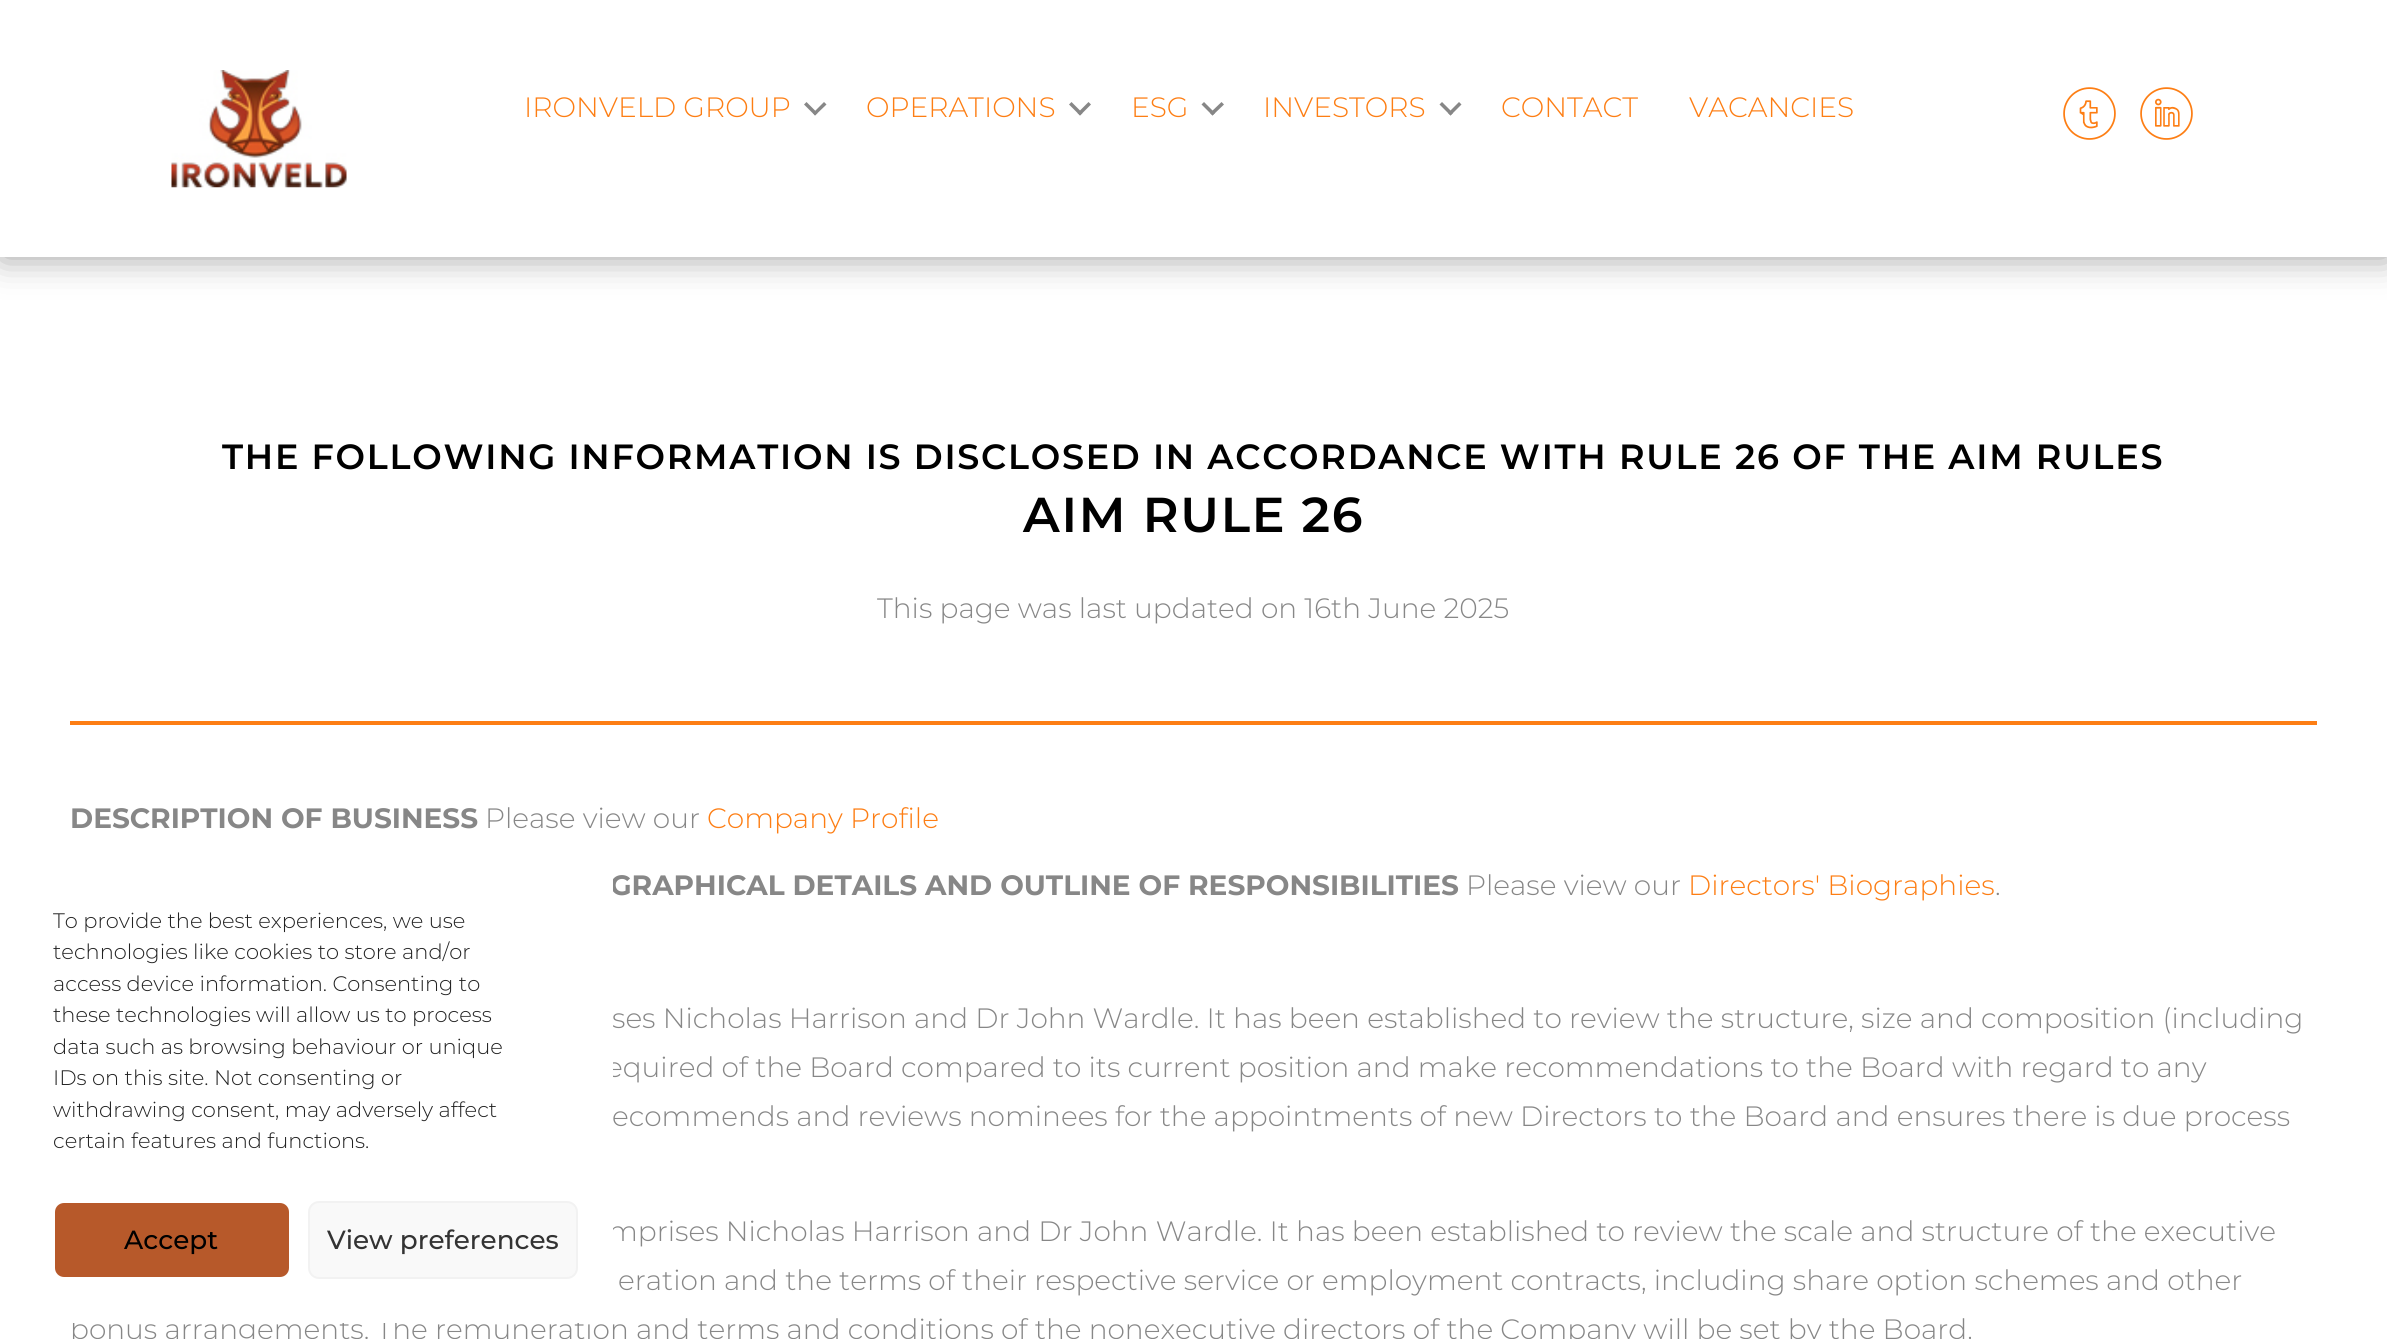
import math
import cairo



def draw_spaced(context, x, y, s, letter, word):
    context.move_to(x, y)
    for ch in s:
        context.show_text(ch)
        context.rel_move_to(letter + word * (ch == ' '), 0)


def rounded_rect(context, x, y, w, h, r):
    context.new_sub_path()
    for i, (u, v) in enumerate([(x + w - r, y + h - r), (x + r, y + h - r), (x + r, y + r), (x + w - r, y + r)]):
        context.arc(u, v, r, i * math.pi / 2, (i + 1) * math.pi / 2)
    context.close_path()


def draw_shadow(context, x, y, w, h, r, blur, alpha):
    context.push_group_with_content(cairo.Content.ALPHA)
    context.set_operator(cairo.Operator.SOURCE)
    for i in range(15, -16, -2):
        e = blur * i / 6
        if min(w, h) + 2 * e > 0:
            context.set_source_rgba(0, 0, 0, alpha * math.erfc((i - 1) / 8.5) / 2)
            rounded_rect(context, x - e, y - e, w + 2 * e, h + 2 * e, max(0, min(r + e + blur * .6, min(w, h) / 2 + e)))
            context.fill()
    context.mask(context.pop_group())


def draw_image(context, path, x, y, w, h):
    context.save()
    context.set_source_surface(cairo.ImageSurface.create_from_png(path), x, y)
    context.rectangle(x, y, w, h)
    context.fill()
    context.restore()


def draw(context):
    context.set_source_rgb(1, 1, 1)
    context.paint()
    context.set_source_rgb(155 / 255, 155 / 255, 155 / 255)
    draw_shadow(context, 2, 0, 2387, 257, 0, 17.5, 1)
    context.set_source_rgb(1, 1, 1)
    context.rectangle(0, 0, 2387, 257)
    context.fill()
    draw_image(context, "images/1.png", 171, 70, 176, 118)
    context.set_source_rgb(135 / 255, 135 / 255, 135 / 255)
    context.new_path()
    context.move_to(824, 102)
    context.line_to(826.5, 104.5)
    context.line_to(815, 115.5)
    context.line_to(813, 113)
    context.close_path()
    context.fill()
    context.new_path()
    context.move_to(806.5, 102)
    context.line_to(817.5, 113)
    context.line_to(815, 115.5)
    context.line_to(804, 104.5)
    context.close_path()
    context.fill()
    context.new_path()
    context.move_to(1088.5, 102)
    context.line_to(1091, 104.5)
    context.line_to(1080, 115.5)
    context.line_to(1077.5, 113)
    context.close_path()
    context.fill()
    context.new_path()
    context.move_to(1071.5, 102)
    context.line_to(1082.5, 113)
    context.line_to(1080, 115.5)
    context.line_to(1069, 104.5)
    context.close_path()
    context.fill()
    context.new_path()
    context.move_to(1221.5, 102)
    context.line_to(1224, 104.5)
    context.line_to(1212.5, 115.5)
    context.line_to(1210, 113)
    context.close_path()
    context.fill()
    context.new_path()
    context.move_to(1204, 102)
    context.line_to(1215, 113)
    context.line_to(1212.5, 115.5)
    context.line_to(1201.5, 104.5)
    context.close_path()
    context.fill()
    context.new_path()
    context.move_to(1459, 102)
    context.line_to(1461.5, 104.5)
    context.line_to(1450.5, 115.5)
    context.line_to(1448, 113)
    context.close_path()
    context.fill()
    context.new_path()
    context.move_to(1442, 102)
    context.line_to(1453, 113)
    context.line_to(1450.5, 115.5)
    context.line_to(1439.5, 104.5)
    context.close_path()
    context.fill()
    draw_image(context, "images/2.png", 2063, 87, 53, 53)
    draw_image(context, "images/3.png", 2140, 87, 53, 53)
    context.set_source_rgb(253 / 255, 126 / 255, 20 / 255)
    context.rectangle(70, 721, 2247, 4)
    context.fill()
    context.select_font_face("Montserrat Light")
    context.set_font_size(28)
    context.move_to(524, 117)
    context.show_text("IRONVELD GROUP")
    context.move_to(866, 117)
    context.show_text("OPERATIONS")
    context.move_to(1131, 117)
    context.show_text("ESG")
    context.move_to(1263, 117)
    context.show_text("INVESTORS")
    context.move_to(1501, 117)
    context.show_text("CONTACT")
    context.move_to(1689, 117)
    context.show_text("VACANCIES")
    context.select_font_face("Montserrat SemiBold")
    context.set_font_size(35)
    context.set_source_rgb(0, 0, 0)
    draw_spaced(context, 222, 469, "THE FOLLOWING INFORMATION IS DISCLOSED IN ACCORDANCE WITH RULE 26 OF THE AIM RULES", 1.75, 0)
    context.set_font_size(49)
    draw_spaced(context, 1023, 532, "AIM RULE 26", 1.75, 0)
    context.select_font_face("Montserrat Light")
    context.set_font_size(28)
    context.set_source_rgb(135 / 255, 135 / 255, 135 / 255)
    context.move_to(877, 618)
    context.show_text("This page was last updated on 16th June 2025")
    context.select_font_face("Montserrat", cairo.FontSlant.NORMAL, cairo.FontWeight.BOLD)
    context.move_to(70, 828)
    context.show_text("DESCRIPTION OF BUSINESS")
    context.select_font_face("Montserrat Light")
    context.move_to(485, 828)
    context.show_text("Please view our")
    context.set_source_rgb(253 / 255, 126 / 255, 20 / 255)
    context.move_to(707, 828)
    context.show_text("Company Profile")
    context.select_font_face("Montserrat", cairo.FontSlant.NORMAL, cairo.FontWeight.BOLD)
    context.set_source_rgb(135 / 255, 135 / 255, 135 / 255)
    context.move_to(610, 895)
    context.show_text("GRAPHICAL DETAILS AND OUTLINE OF RESPONSIBILITIES")
    context.select_font_face("Montserrat Light")
    context.move_to(1466, 895)
    context.show_text("Please view our")
    context.set_source_rgb(253 / 255, 126 / 255, 20 / 255)
    context.move_to(1688, 895)
    context.show_text("Directors' Biographies")
    context.set_source_rgb(135 / 255, 135 / 255, 135 / 255)
    context.move_to(1995, 895)
    context.show_text(".")
    context.move_to(612, 1028)
    context.show_text("ses Nicholas Harrison and Dr John Wardle. It has been established to review the structure, size and composition (including")
    context.move_to(606, 1077)
    context.show_text("equired of the Board compared to its current position and make recommendations to the Board with regard to any")
    context.move_to(612, 1126)
    context.show_text("ecommends and reviews nominees for the appointments of new Directors to the Board and ensures there is due process")
    context.move_to(608, 1241)
    context.show_text("mprises Nicholas Harrison and Dr John Wardle. It has been established to review the scale and structure of the executive")
    context.move_to(618, 1290)
    context.show_text("eration and the terms of their respective service or employment contracts, including share option schemes and other")
    context.move_to(70, 1339)
    context.show_text("bonus arrangements. The remuneration and terms and conditions of the nonexecutive directors of the Company will be set by the Board.")
    context.set_source_rgb(1, 1, 1)
    rounded_rect(context, 18, 844, 595, 479, 21)
    context.fill()
    context.set_font_size(21)
    context.set_source_rgb(34 / 255, 34 / 255, 34 / 255)
    context.move_to(53, 928)
    context.show_text("To provide the best experiences, we use")
    context.move_to(53, 959)
    context.show_text("technologies like cookies to store and/or")
    context.move_to(53, 991)
    context.show_text("access device information. Consenting to")
    context.move_to(53, 1022)
    context.show_text("these technologies will allow us to process")
    context.move_to(53, 1054)
    context.show_text("data such as browsing behaviour or unique")
    context.move_to(53, 1085)
    context.show_text("IDs on this site. Not consenting or")
    context.move_to(53, 1117)
    context.show_text("withdrawing consent, may adversely affect")
    context.move_to(53, 1148)
    context.show_text("certain features and functions.")
    context.set_source_rgb(183 / 255, 89 / 255, 42 / 255)
    rounded_rect(context, 54, 1202, 236, 76, 10)
    context.fill_preserve()
    context.set_source_rgb(1, 1, 1)
    context.stroke()
    context.select_font_face("Montserrat Medium")
    context.set_font_size(26.25)
    context.set_source_rgb(0, 0, 0)
    context.move_to(124, 1249)
    context.show_text("Accept")
    context.set_source_rgb(249 / 255, 249 / 255, 249 / 255)
    rounded_rect(context, 309, 1202, 268, 76, 10)
    context.fill_preserve()
    context.set_source_rgb(242 / 255, 242 / 255, 242 / 255)
    context.stroke()
    context.set_source_rgb(51 / 255, 51 / 255, 51 / 255)
    context.move_to(327, 1249)
    context.show_text("View preferences")


surface = cairo.ImageSurface(cairo.Format.RGB24, 2387, 1339)
context = cairo.Context(surface)
options = cairo.FontOptions()
options.set_hint_metrics(cairo.HintMetrics.OFF)
options.set_hint_style(cairo.HintStyle.NONE)
context.set_font_options(options)
context.set_miter_limit(4)
draw(context)
surface.write_to_png("out.png")
